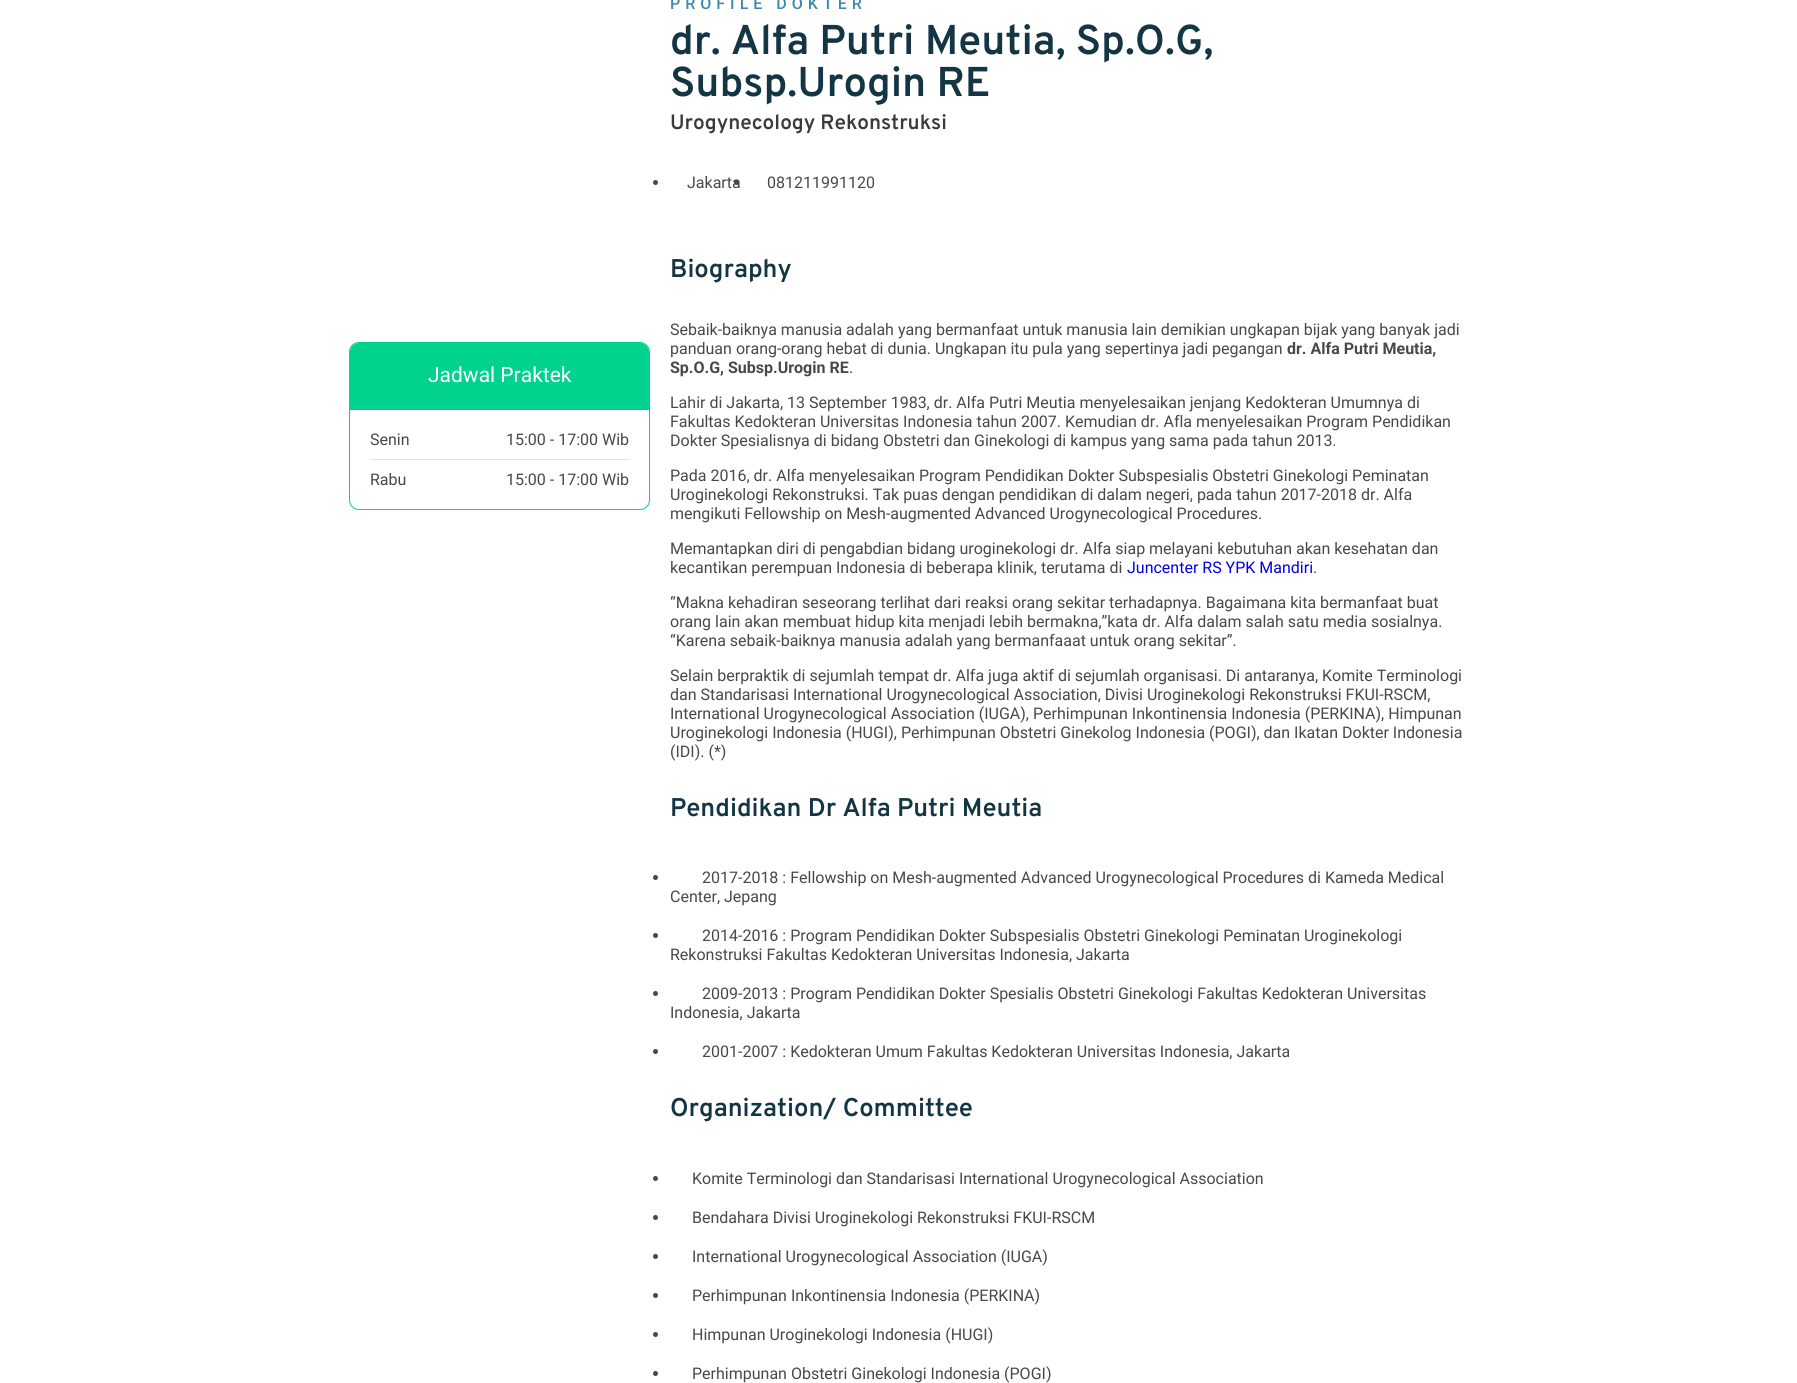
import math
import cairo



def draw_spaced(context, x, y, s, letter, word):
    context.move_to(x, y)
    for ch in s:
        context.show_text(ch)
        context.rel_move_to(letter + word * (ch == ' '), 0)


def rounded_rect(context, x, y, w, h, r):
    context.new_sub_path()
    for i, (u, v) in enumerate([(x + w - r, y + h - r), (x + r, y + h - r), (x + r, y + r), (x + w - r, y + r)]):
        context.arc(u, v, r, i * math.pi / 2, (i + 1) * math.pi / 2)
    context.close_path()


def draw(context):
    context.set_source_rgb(1, 1, 1)
    context.paint()
    rounded_rect(context, 349.5, 342.5, 300, 167, 9.5)
    context.set_source_rgb(1 / 255, 210 / 255, 142 / 255)
    context.set_line_width(1)
    context.stroke()
    context.new_path()
    context.move_to(359, 343)
    context.line_to(640, 343)
    context.curve_to(645, 343, 649, 347, 649, 352)
    context.line_to(649, 410)
    context.line_to(350, 410)
    context.line_to(350, 352)
    context.curve_to(350, 347, 354, 343, 359, 343)
    context.close_path()
    context.fill()
    context.set_source_rgb(227 / 255, 227 / 255, 227 / 255)
    context.rectangle(370, 459, 259, 1)
    context.fill()
    context.set_source_rgb(72 / 255, 72 / 255, 72 / 255)
    context.arc(655.5, 182.5, 2.5, 0, 2 * math.pi)
    context.fill()
    context.arc(736.5, 182.5, 2.5, 0, 2 * math.pi)
    context.fill()
    context.arc(655.5, 877.5, 2.5, 0, 2 * math.pi)
    context.fill()
    context.arc(655.5, 935.5, 2.5, 0, 2 * math.pi)
    context.fill()
    context.arc(655.5, 993.5, 2.5, 0, 2 * math.pi)
    context.fill()
    context.arc(655.5, 1051.5, 2.5, 0, 2 * math.pi)
    context.fill()
    context.arc(655.5, 1178.5, 2.5, 0, 2 * math.pi)
    context.fill()
    context.arc(655.5, 1217.5, 2.5, 0, 2 * math.pi)
    context.fill()
    context.arc(655.5, 1256.5, 2.5, 0, 2 * math.pi)
    context.fill()
    context.arc(655.5, 1295.5, 2.5, 0, 2 * math.pi)
    context.fill()
    context.arc(655.5, 1334.5, 2.5, 0, 2 * math.pi)
    context.fill()
    context.arc(655.5, 1373.5, 2.5, 0, 2 * math.pi)
    context.fill()
    context.select_font_face("Roboto")
    context.set_font_size(21)
    context.set_source_rgb(1, 1, 1)
    context.move_to(428, 382)
    context.show_text("Jadwal Praktek")
    context.set_font_size(16)
    context.set_source_rgb(72 / 255, 72 / 255, 72 / 255)
    context.move_to(370, 445)
    context.show_text("Senin")
    context.move_to(506, 445)
    context.show_text("15:00 - 17:00 Wib")
    context.move_to(370, 485)
    context.show_text("Rabu")
    context.move_to(506, 485)
    context.show_text("15:00 - 17:00 Wib")
    context.select_font_face("Roboto Medium")
    context.set_source_rgb(60 / 255, 138 / 255, 171 / 255)
    draw_spaced(context, 670, 9, "PROFILE DOKTER", 5, 0)
    context.select_font_face("Overpass SemiBold")
    context.set_font_size(41.6)
    context.set_source_rgb(20 / 255, 53 / 255, 68 / 255)
    context.move_to(670, 54)
    context.show_text("dr. Alfa Putri Meutia, Sp.O.G,")
    context.move_to(670, 96)
    context.show_text("Subsp.Urogin RE")
    context.set_font_size(20.75)
    context.set_source_rgb(58 / 255, 58 / 255, 58 / 255)
    context.move_to(670, 129)
    context.show_text("Urogynecology Rekonstruksi")
    context.select_font_face("Roboto")
    context.set_font_size(16)
    context.set_source_rgb(72 / 255, 72 / 255, 72 / 255)
    context.move_to(687, 188)
    context.show_text("Jakarta")
    context.move_to(767, 188)
    context.show_text("081211991120")
    context.select_font_face("Overpass SemiBold")
    context.set_font_size(25.6)
    context.set_source_rgb(20 / 255, 53 / 255, 68 / 255)
    context.move_to(670, 277)
    context.show_text("Biography")
    context.select_font_face("Roboto")
    context.set_font_size(16)
    context.set_source_rgb(72 / 255, 72 / 255, 72 / 255)
    context.move_to(670, 335)
    context.show_text("Sebaik-baiknya manusia adalah yang bermanfaat untuk manusia lain demikian ungkapan bijak yang banyak jadi")
    context.move_to(670, 354)
    context.show_text("panduan orang-orang hebat di dunia. Ungkapan itu pula yang sepertinya jadi pegangan")
    context.select_font_face("Roboto", cairo.FontSlant.NORMAL, cairo.FontWeight.BOLD)
    context.move_to(1287, 354)
    context.show_text("dr. Alfa Putri Meutia,")
    context.move_to(670, 373)
    context.show_text("Sp.O.G, Subsp.Urogin RE")
    context.select_font_face("Roboto")
    context.move_to(849, 373)
    context.show_text(".")
    context.move_to(670, 408)
    context.show_text("Lahir di Jakarta, 13 September 1983, dr. Alfa Putri Meutia menyelesaikan jenjang Kedokteran Umumnya di")
    context.move_to(670, 427)
    context.show_text("Fakultas Kedokteran Universitas Indonesia tahun 2007. Kemudian dr. Afla menyelesaikan Program Pendidikan")
    context.move_to(670, 446)
    context.show_text("Dokter Spesialisnya di bidang Obstetri dan Ginekologi di kampus yang sama pada tahun 2013.")
    context.move_to(670, 481)
    context.show_text("Pada 2016, dr. Alfa menyelesaikan Program Pendidikan Dokter Subspesialis Obstetri Ginekologi Peminatan")
    context.move_to(670, 500)
    context.show_text("Uroginekologi Rekonstruksi. Tak puas dengan pendidikan di dalam negeri, pada tahun 2017-2018 dr. Alfa")
    context.move_to(670, 519)
    context.show_text("mengikuti Fellowship on Mesh-augmented Advanced Urogynecological Procedures.")
    context.move_to(670, 554)
    context.show_text("Memantapkan diri di pengabdian bidang uroginekologi dr. Alfa siap melayani kebutuhan akan kesehatan dan")
    context.move_to(670, 573)
    context.show_text("kecantikan perempuan Indonesia di beberapa klinik, terutama di")
    context.set_source_rgb(0, 0, 238 / 255)
    context.move_to(1127, 573)
    context.show_text("Juncenter RS YPK Mandiri")
    context.set_source_rgb(72 / 255, 72 / 255, 72 / 255)
    context.move_to(1313, 573)
    context.show_text(".")
    context.move_to(670, 608)
    context.show_text("“Makna kehadiran seseorang terlihat dari reaksi orang sekitar terhadapnya. Bagaimana kita bermanfaat buat")
    context.move_to(670, 627)
    context.show_text("orang lain akan membuat hidup kita menjadi lebih bermakna,”kata dr. Alfa dalam salah satu media sosialnya.")
    context.move_to(670, 646)
    context.show_text("“Karena sebaik-baiknya manusia adalah yang bermanfaaat untuk orang sekitar”.")
    context.move_to(670, 681)
    context.show_text("Selain berpraktik di sejumlah tempat dr. Alfa juga aktif di sejumlah organisasi. Di antaranya, Komite Terminologi")
    context.move_to(670, 700)
    context.show_text("dan Standarisasi International Urogynecological Association, Divisi Uroginekologi Rekonstruksi FKUI-RSCM,")
    context.move_to(670, 719)
    context.show_text("International Urogynecological Association (IUGA), Perhimpunan Inkontinensia Indonesia (PERKINA), Himpunan")
    context.move_to(670, 738)
    context.show_text("Uroginekologi Indonesia (HUGI), Perhimpunan Obstetri Ginekolog Indonesia (POGI), dan Ikatan Dokter Indonesia")
    context.move_to(670, 757)
    context.show_text("(IDI). (*)")
    context.select_font_face("Overpass SemiBold")
    context.set_font_size(25.6)
    context.set_source_rgb(20 / 255, 53 / 255, 68 / 255)
    context.move_to(670, 816)
    context.show_text("Pendidikan Dr Alfa Putri Meutia")
    context.select_font_face("Roboto")
    context.set_font_size(16)
    context.set_source_rgb(72 / 255, 72 / 255, 72 / 255)
    context.move_to(702, 883)
    context.show_text("2017-2018 : Fellowship on Mesh-augmented Advanced Urogynecological Procedures di Kameda Medical")
    context.move_to(670, 902)
    context.show_text("Center, Jepang")
    context.move_to(702, 941)
    context.show_text("2014-2016 : Program Pendidikan Dokter Subspesialis Obstetri Ginekologi Peminatan Uroginekologi")
    context.move_to(670, 960)
    context.show_text("Rekonstruksi Fakultas Kedokteran Universitas Indonesia, Jakarta")
    context.move_to(702, 999)
    context.show_text("2009-2013 : Program Pendidikan Dokter Spesialis Obstetri Ginekologi Fakultas Kedokteran Universitas")
    context.move_to(670, 1018)
    context.show_text("Indonesia, Jakarta")
    context.move_to(702, 1057)
    context.show_text("2001-2007 : Kedokteran Umum Fakultas Kedokteran Universitas Indonesia, Jakarta")
    context.select_font_face("Overpass SemiBold")
    context.set_font_size(25.6)
    context.set_source_rgb(20 / 255, 53 / 255, 68 / 255)
    context.move_to(670, 1116)
    context.show_text("Organization/ Committee")
    context.select_font_face("Roboto")
    context.set_font_size(16)
    context.set_source_rgb(72 / 255, 72 / 255, 72 / 255)
    context.move_to(692, 1184)
    context.show_text("Komite Terminologi dan Standarisasi International Urogynecological Association")
    context.move_to(692, 1223)
    context.show_text("Bendahara Divisi Uroginekologi Rekonstruksi FKUI-RSCM")
    context.move_to(692, 1262)
    context.show_text("International Urogynecological Association (IUGA)")
    context.move_to(692, 1301)
    context.show_text("Perhimpunan Inkontinensia Indonesia (PERKINA)")
    context.move_to(692, 1340)
    context.show_text("Himpunan Uroginekologi Indonesia (HUGI)")
    context.move_to(692, 1379)
    context.show_text("Perhimpunan Obstetri Ginekologi Indonesia (POGI)")


surface = cairo.ImageSurface(cairo.Format.RGB24, 1797, 1383)
context = cairo.Context(surface)
options = cairo.FontOptions()
options.set_hint_metrics(cairo.HintMetrics.OFF)
options.set_hint_style(cairo.HintStyle.NONE)
context.set_font_options(options)
context.set_miter_limit(4)
draw(context)
surface.write_to_png("out.png")
